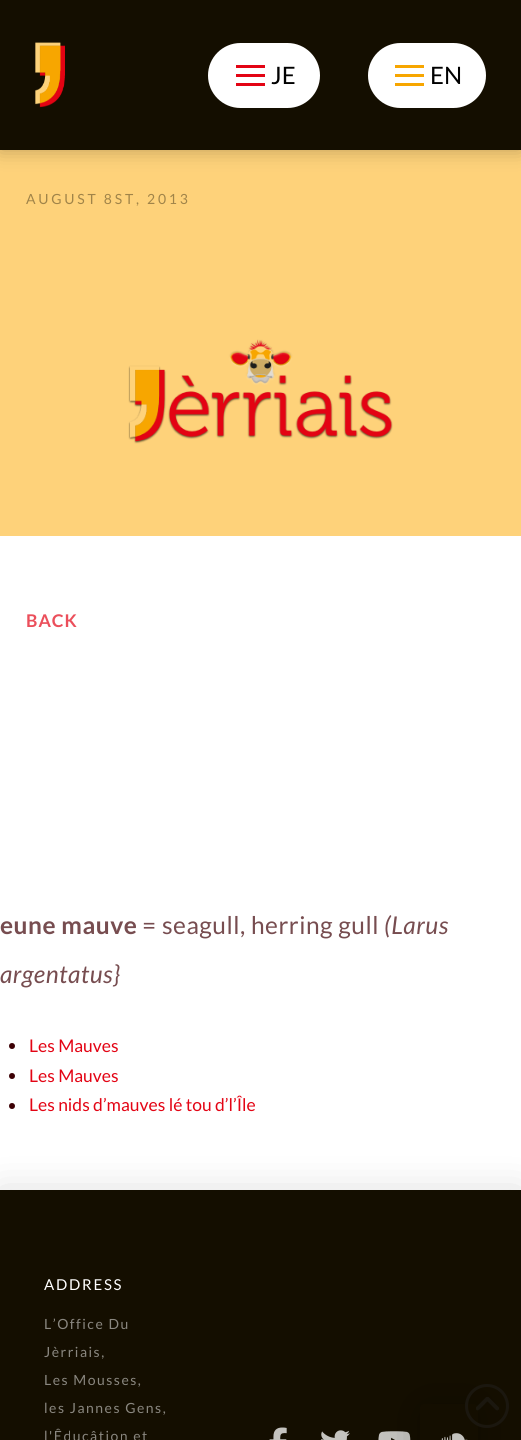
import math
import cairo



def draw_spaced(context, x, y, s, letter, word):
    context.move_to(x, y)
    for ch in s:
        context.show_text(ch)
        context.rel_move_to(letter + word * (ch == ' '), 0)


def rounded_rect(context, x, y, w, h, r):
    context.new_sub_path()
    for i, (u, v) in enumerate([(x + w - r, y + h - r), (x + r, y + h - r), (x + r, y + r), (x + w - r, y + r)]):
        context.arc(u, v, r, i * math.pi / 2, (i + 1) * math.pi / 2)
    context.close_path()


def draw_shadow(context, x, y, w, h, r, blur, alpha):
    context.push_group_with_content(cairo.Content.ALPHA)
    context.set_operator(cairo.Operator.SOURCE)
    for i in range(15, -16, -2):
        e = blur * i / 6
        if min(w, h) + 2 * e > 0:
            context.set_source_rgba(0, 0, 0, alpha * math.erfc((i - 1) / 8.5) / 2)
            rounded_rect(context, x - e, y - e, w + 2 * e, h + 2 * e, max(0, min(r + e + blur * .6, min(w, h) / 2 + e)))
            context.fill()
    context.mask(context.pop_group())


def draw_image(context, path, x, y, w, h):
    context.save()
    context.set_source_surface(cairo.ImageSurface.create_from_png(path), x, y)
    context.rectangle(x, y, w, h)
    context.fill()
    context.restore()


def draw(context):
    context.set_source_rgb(1, 1, 1)
    context.paint()
    context.set_source_rgb(254 / 255, 210 / 255, 122 / 255)
    context.rectangle(0, 150, 521, 386)
    context.fill()
    context.set_source_rgb(0, 0, 0)
    draw_shadow(context, 0, 0, 521, 150, 0, 10, 0.25)
    context.set_source_rgb(20 / 255, 14 / 255, 0)
    context.rectangle(0, 0, 521, 150)
    context.fill()
    draw_image(context, "images/1.png", 35, 42, 30, 66)
    context.set_source_rgb(1, 1, 1)
    rounded_rect(context, 208, 43, 112, 65, 32.5)
    context.fill()
    context.set_source_rgb(227 / 255, 4 / 255, 20 / 255)
    context.rectangle(236, 65, 29, 3)
    context.fill()
    context.rectangle(236, 74, 29, 3)
    context.fill()
    context.rectangle(236, 83, 29, 3)
    context.fill()
    context.set_source_rgb(1, 1, 1)
    rounded_rect(context, 368, 43, 118, 65, 32.5)
    context.fill()
    context.set_source_rgb(247 / 255, 166 / 255, 0)
    context.rectangle(395, 65, 29, 3)
    context.fill()
    context.rectangle(395, 74, 29, 3)
    context.fill()
    context.rectangle(395, 83, 29, 3)
    context.fill()
    draw_image(context, "images/2.png", 128, 339, 265, 105)
    context.set_source_rgb(60 / 255, 1 / 255, 5 / 255)
    context.arc(12, 1046, 3, 0, 2 * math.pi)
    context.fill()
    context.arc(12, 1076, 3, 0, 2 * math.pi)
    context.fill()
    context.arc(12, 1106, 3, 0, 2 * math.pi)
    context.fill()
    context.set_source_rgb(0, 0, 0)
    draw_shadow(context, 0, 1193, 521, 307, 0, 20, 0.15)
    context.set_source_rgb(20 / 255, 14 / 255, 0)
    context.rectangle(0, 1190, 521, 250)
    context.fill()
    draw_image(context, "images/3.png", 269, 1427, 18, 13)
    draw_image(context, "images/4.png", 321, 1430, 29, 10)
    draw_image(context, "images/6.png", 378, 1431, 33, 9)
    context.save()
    context.set_fill_rule(cairo.FillRule.EVEN_ODD)
    context.new_path()
    context.move_to(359, 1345)
    context.line_to(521, 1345)
    context.line_to(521, 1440)
    context.line_to(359, 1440)
    context.close_path()
    context.move_to(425, 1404)
    context.line_to(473, 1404)
    context.curve_to(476, 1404, 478, 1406, 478, 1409)
    context.line_to(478, 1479)
    context.curve_to(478, 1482, 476, 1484, 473, 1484)
    context.line_to(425, 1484)
    context.curve_to(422, 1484, 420, 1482, 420, 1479)
    context.line_to(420, 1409)
    context.curve_to(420, 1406, 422, 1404, 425, 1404)
    context.close_path()
    context.clip()
    context.set_source_rgb(0, 0, 0)
    draw_shadow(context, 420, 1406, 58, 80, 5, 20, 0.25)
    context.restore()
    draw_image(context, "images/5.png", 441, 1433, 27, 7)
    context.arc(487, 1406, 20.5, 0, 2 * math.pi)
    context.set_source_rgb(27 / 255, 23 / 255, 15 / 255)
    context.set_line_width(3)
    context.stroke()
    draw_image(context, "images/7.png", 476, 1397, 23, 14)
    context.select_font_face("Lato")
    context.set_font_size(24)
    context.set_source_rgb(0, 0, 0)
    context.move_to(271, 84)
    context.show_text("JE")
    context.move_to(430, 84)
    context.show_text("EN")
    context.set_font_size(14)
    context.set_source_rgb(160 / 255, 132 / 255, 73 / 255)
    draw_spaced(context, 26, 204, "AUGUST 8ST, 2013", 2.75, 0)
    context.select_font_face("Lato", cairo.FontSlant.NORMAL, cairo.FontWeight.BOLD)
    context.set_font_size(17.5)
    context.set_source_rgb(235 / 255, 79 / 255, 91 / 255)
    draw_spaced(context, 26, 627, "BACK", 1, 0)
    context.set_font_size(24.5)
    context.set_source_rgb(119 / 255, 77 / 255, 80 / 255)
    draw_spaced(context, 0, 934, "eune mauve", 0.5, 0)
    context.select_font_face("Lato")
    draw_spaced(context, 142, 934, "= seagull, herring gull", 0.5, 0)
    context.select_font_face("Lato", cairo.FontSlant.ITALIC)
    draw_spaced(context, 384, 934, "(Larus", 0.5, 0)
    draw_spaced(context, 0, 983, "argentatus}", 0.5, 0)
    context.select_font_face("Lato")
    context.set_font_size(17.5)
    context.set_source_rgb(227 / 255, 4 / 255, 20 / 255)
    context.move_to(29, 1052)
    context.show_text("Les Mauves")
    context.move_to(29, 1082)
    context.show_text("Les Mauves")
    context.move_to(29, 1111)
    context.show_text("Les nids d’mauves lé tou d’l’Île")
    context.set_font_size(15)
    context.set_source_rgb(1, 1, 1)
    draw_spaced(context, 44, 1290, "ADDRESS", 1.75, 0)
    context.set_font_size(14)
    context.set_source_rgb(138 / 255, 135 / 255, 128 / 255)
    draw_spaced(context, 44, 1329, "L’Office Du", 1.5, 0)
    draw_spaced(context, 44, 1357, "Jèrriais,", 1.5, 0)
    draw_spaced(context, 44, 1385, "Les Mousses,", 1.5, 0)
    draw_spaced(context, 44, 1413, "les Jannes Gens,", 1.5, 0)
    draw_spaced(context, 44, 1441, "l'Êducâtion et", 1.5, 0)


surface = cairo.ImageSurface(cairo.Format.RGB24, 521, 1440)
context = cairo.Context(surface)
options = cairo.FontOptions()
options.set_hint_metrics(cairo.HintMetrics.OFF)
options.set_hint_style(cairo.HintStyle.NONE)
context.set_font_options(options)
context.set_miter_limit(4)
draw(context)
surface.write_to_png("out.png")
